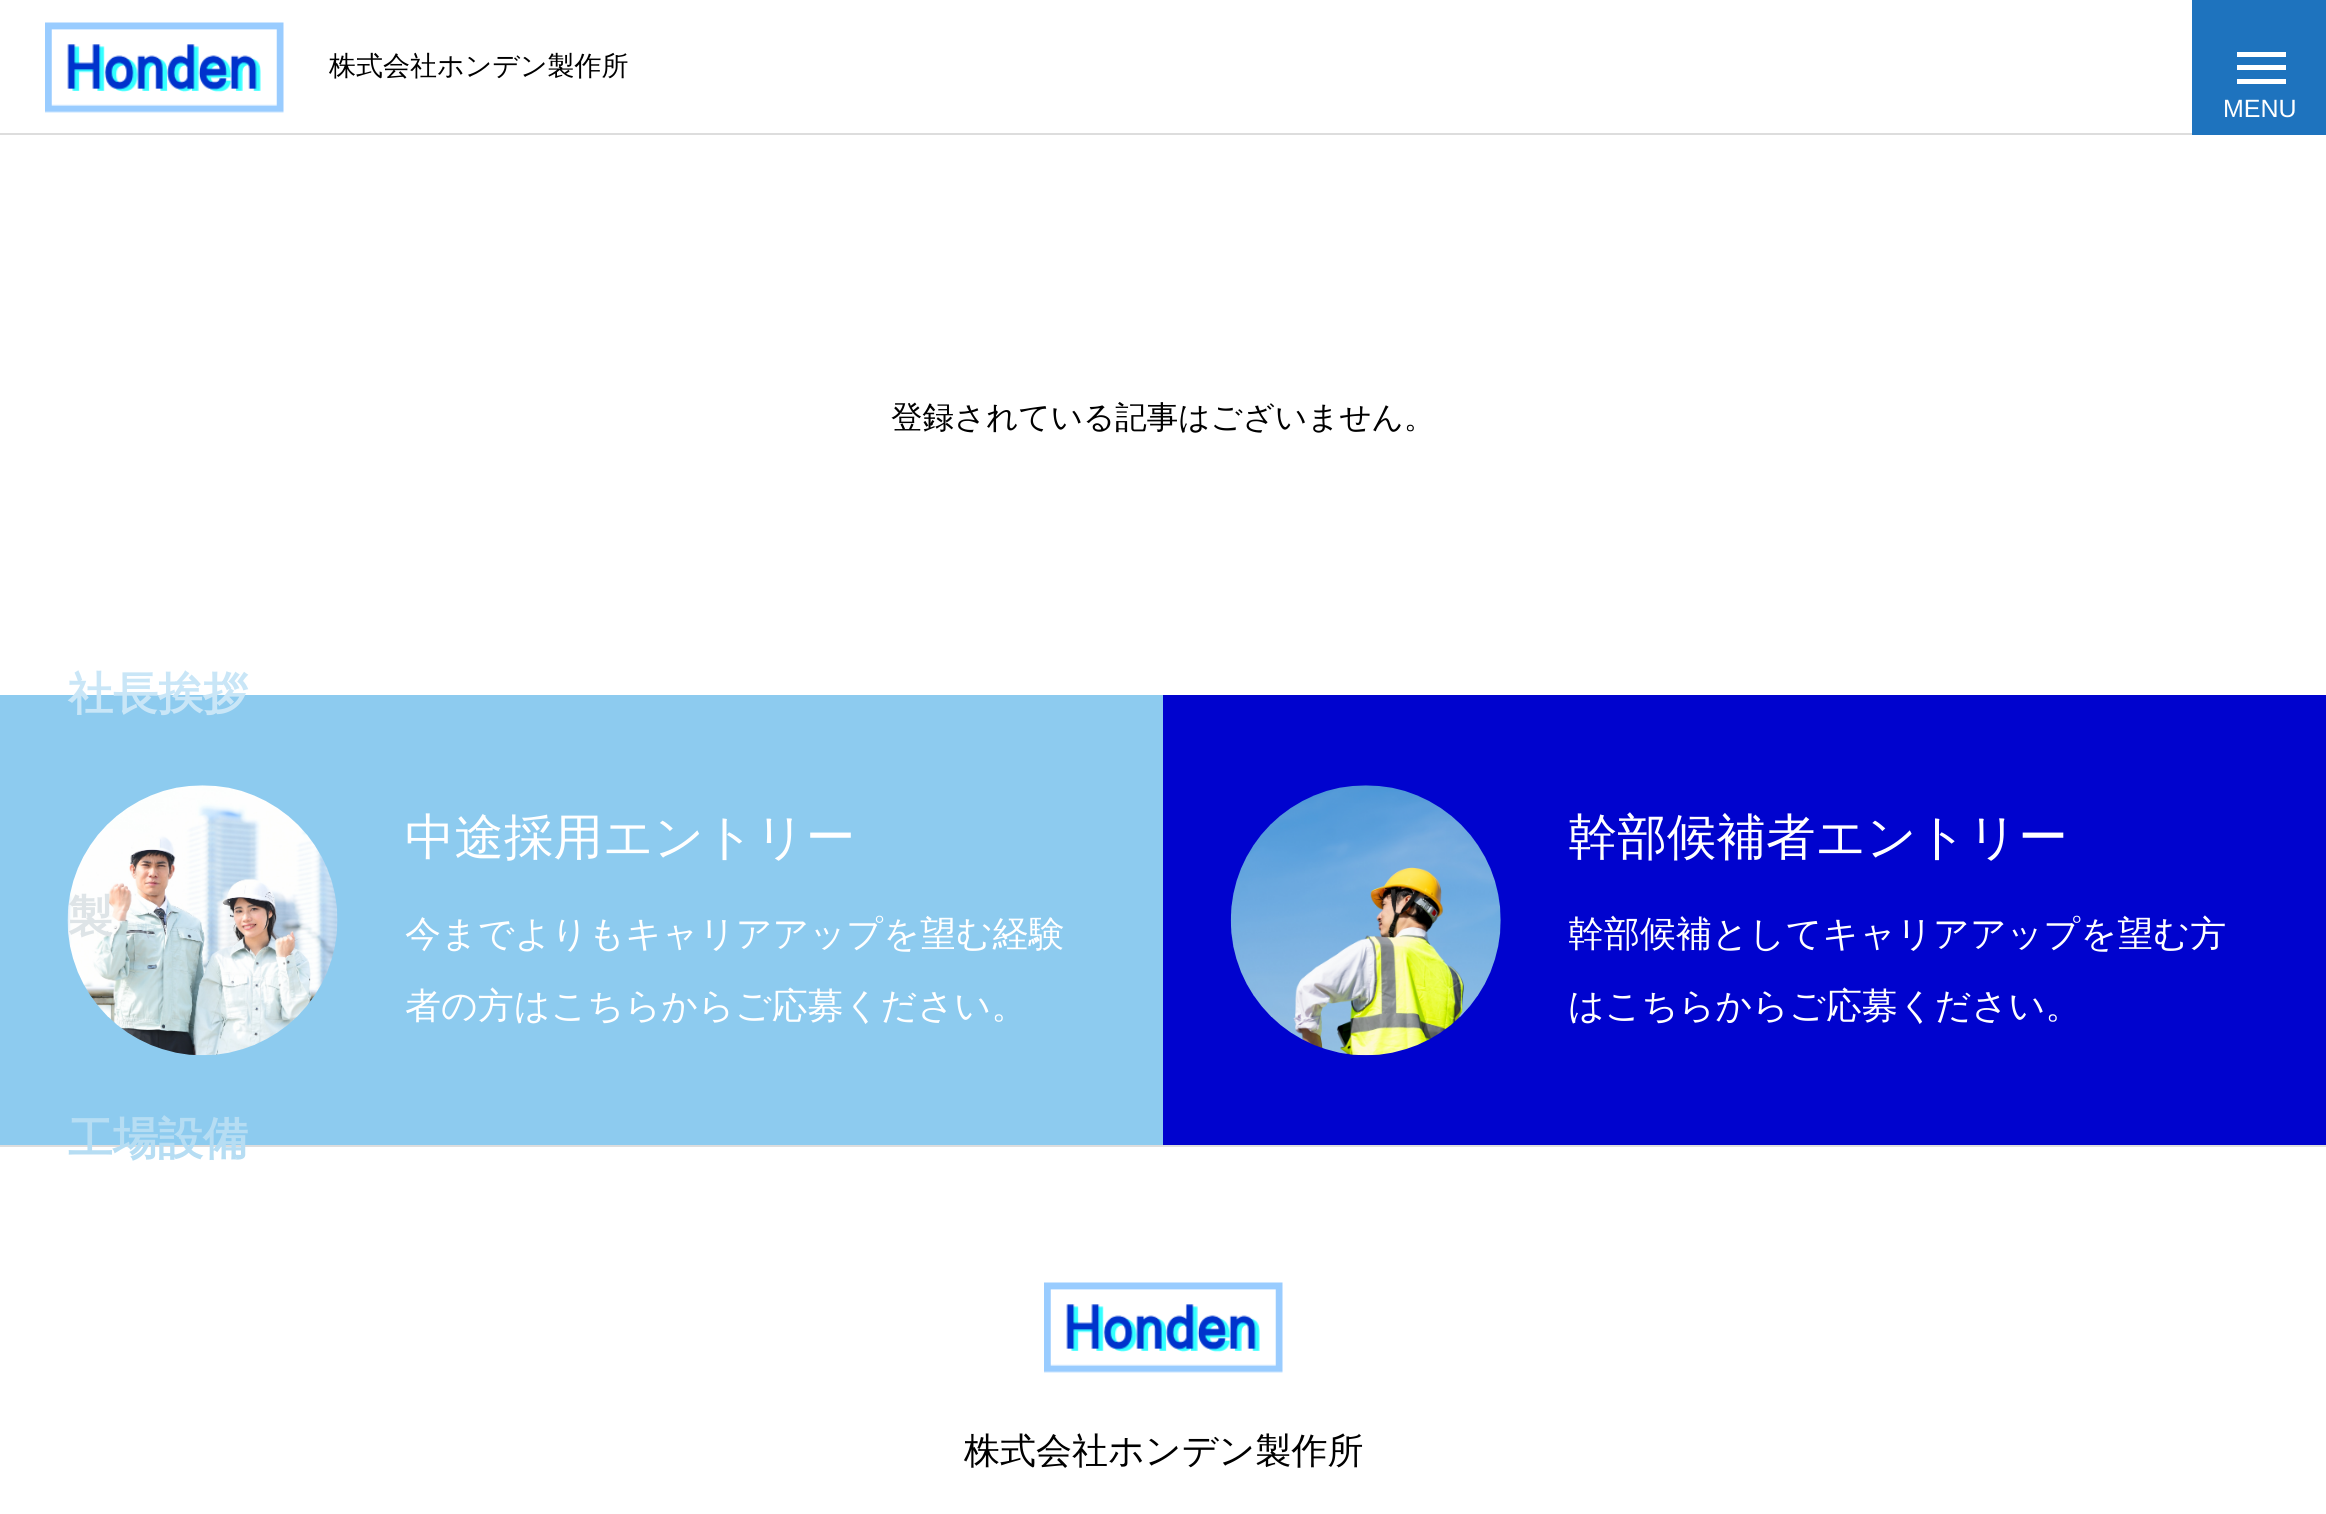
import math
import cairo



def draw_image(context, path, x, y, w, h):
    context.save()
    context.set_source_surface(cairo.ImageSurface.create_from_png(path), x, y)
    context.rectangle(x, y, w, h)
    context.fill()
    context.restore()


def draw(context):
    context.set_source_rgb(1, 1, 1)
    context.paint()
    draw_image(context, "images/1.png", 45, 22, 239, 91)
    context.set_source_rgb(30 / 255, 115 / 255, 190 / 255)
    context.rectangle(2192, 0, 134, 135)
    context.fill()
    context.set_source_rgb(1, 1, 1)
    context.rectangle(2237, 52, 49, 5)
    context.fill()
    context.rectangle(2237, 65, 49, 5)
    context.fill()
    context.rectangle(2237, 79, 49, 5)
    context.fill()
    context.set_source_rgb(221 / 255, 221 / 255, 221 / 255)
    context.rectangle(0, 133, 2192, 2)
    context.fill()
    context.set_source_rgb(141 / 255, 203 / 255, 239 / 255)
    context.rectangle(0, 695, 1163, 450)
    context.fill()
    draw_image(context, "images/2.png", 67, 785, 271, 271)
    context.set_source_rgb(0, 3 / 255, 206 / 255)
    context.rectangle(1163, 695, 1163, 450)
    context.fill()
    draw_image(context, "images/3.png", 1230, 785, 271, 271)
    context.set_source_rgb(221 / 255, 221 / 255, 221 / 255)
    context.rectangle(0, 1145, 2326, 2)
    context.fill()
    draw_image(context, "images/1.png", 1044, 1282, 239, 91)
    context.select_font_face("WenQuanYi Zen Hei Medium")
    context.set_font_size(27)
    context.set_source_rgb(0, 0, 0)
    context.move_to(329, 75)
    context.show_text("株式会社ホンデン製作所")
    context.select_font_face("Liberation Sans")
    context.set_font_size(25)
    context.set_source_rgb(1, 1, 1)
    context.move_to(2223, 117)
    context.show_text("MENU")
    context.select_font_face("WenQuanYi Zen Hei Medium")
    context.set_font_size(31.5)
    context.set_source_rgb(0, 0, 0)
    context.move_to(891, 428)
    context.show_text("登録されている記事はございません。")
    context.select_font_face("WenQuanYi Zen Hei", cairo.FontSlant.NORMAL, cairo.FontWeight.BOLD)
    context.set_font_size(45)
    context.set_source_rgb(201 / 255, 230 / 255, 247 / 255)
    context.move_to(68, 709)
    context.show_text("社長挨拶")
    context.set_source_rgb(222 / 255, 228 / 255, 231 / 255)
    context.move_to(68, 932)
    context.show_text("製")
    context.set_source_rgb(182 / 255, 221 / 255, 243 / 255)
    context.move_to(68, 1154)
    context.show_text("工場設備")
    context.select_font_face("WenQuanYi Zen Hei Medium")
    context.set_font_size(49.5)
    context.set_source_rgb(1, 1, 1)
    context.move_to(405, 854)
    context.show_text("中途採用エントリー")
    context.set_font_size(36)
    context.move_to(405, 946)
    context.show_text("今までよりもキャリアアップを望む経験")
    context.move_to(405, 1018)
    context.show_text("者の方はこちらからご応募ください。")
    context.set_font_size(49.5)
    context.move_to(1568, 854)
    context.show_text("幹部候補者エントリー")
    context.set_font_size(36)
    context.move_to(1568, 946)
    context.show_text("幹部候補としてキャリアアップを望む方")
    context.move_to(1568, 1018)
    context.show_text("はこちらからご応募ください。")
    context.set_source_rgb(0, 0, 0)
    context.move_to(964, 1463)
    context.show_text("株式会社ホンデン製作所")


surface = cairo.ImageSurface(cairo.Format.RGB24, 2326, 1514)
context = cairo.Context(surface)
options = cairo.FontOptions()
options.set_hint_metrics(cairo.HintMetrics.OFF)
options.set_hint_style(cairo.HintStyle.NONE)
context.set_font_options(options)
context.set_miter_limit(4)
draw(context)
surface.write_to_png("out.png")
